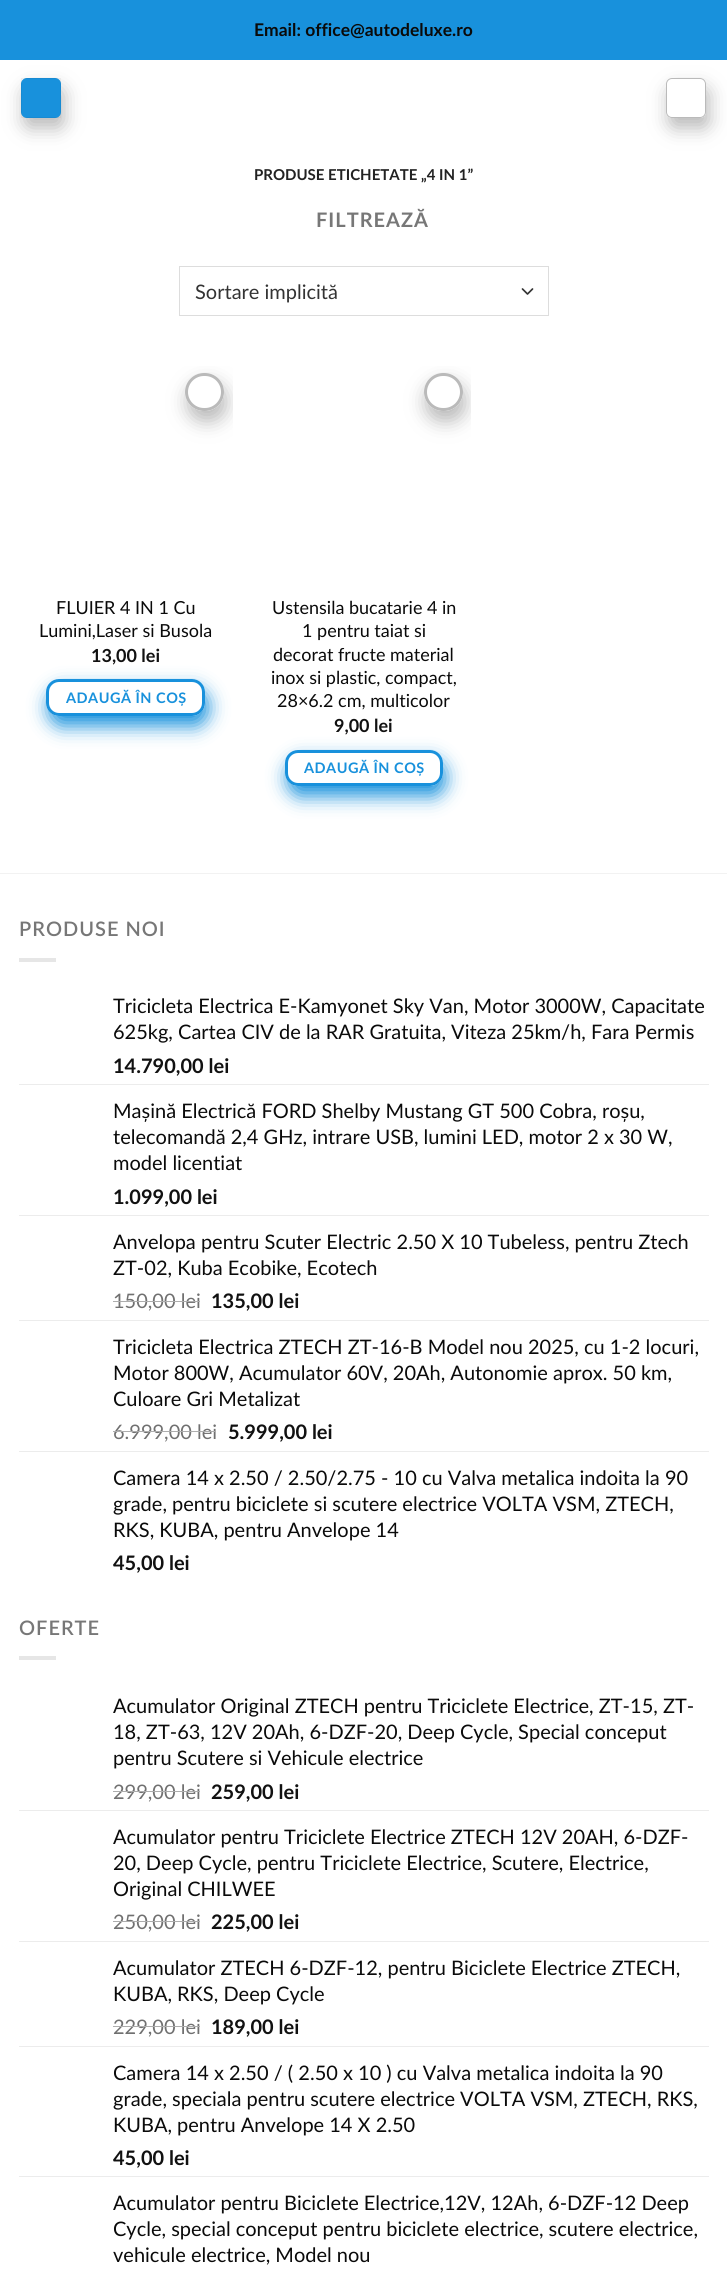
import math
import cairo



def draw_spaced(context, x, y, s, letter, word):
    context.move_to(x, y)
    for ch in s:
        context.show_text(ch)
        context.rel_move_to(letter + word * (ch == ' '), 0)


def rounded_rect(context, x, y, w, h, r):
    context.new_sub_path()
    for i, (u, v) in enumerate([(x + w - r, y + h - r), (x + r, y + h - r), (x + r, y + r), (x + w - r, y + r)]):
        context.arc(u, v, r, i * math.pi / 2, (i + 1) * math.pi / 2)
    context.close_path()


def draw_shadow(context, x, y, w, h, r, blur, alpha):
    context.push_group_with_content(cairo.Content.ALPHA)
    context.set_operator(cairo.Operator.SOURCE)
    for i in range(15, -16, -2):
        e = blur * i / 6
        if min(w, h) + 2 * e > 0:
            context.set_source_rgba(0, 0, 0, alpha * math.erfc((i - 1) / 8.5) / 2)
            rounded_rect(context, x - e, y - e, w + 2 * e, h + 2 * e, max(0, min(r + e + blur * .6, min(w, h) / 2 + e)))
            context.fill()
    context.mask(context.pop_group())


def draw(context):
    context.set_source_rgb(1, 1, 1)
    context.paint()
    context.set_source_rgb(186 / 255, 186 / 255, 186 / 255)
    draw_shadow(context, 24, 88, 40, 40, 6, 9.5, 1)
    context.save()
    context.set_fill_rule(cairo.FillRule.EVEN_ODD)
    context.new_path()
    context.move_to(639, 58)
    context.line_to(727, 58)
    context.line_to(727, 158)
    context.line_to(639, 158)
    context.close_path()
    context.move_to(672, 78)
    context.line_to(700, 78)
    context.curve_to(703.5, 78, 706, 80.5, 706, 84)
    context.line_to(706, 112)
    context.curve_to(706, 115.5, 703.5, 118, 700, 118)
    context.line_to(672, 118)
    context.curve_to(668.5, 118, 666, 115.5, 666, 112)
    context.line_to(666, 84)
    context.curve_to(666, 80.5, 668.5, 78, 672, 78)
    context.close_path()
    context.clip()
    draw_shadow(context, 669, 88, 40, 40, 6, 9.5, 1)
    context.restore()
    context.set_source_rgb(24 / 255, 145 / 255, 220 / 255)
    context.rectangle(0, 0, 727, 60)
    context.fill()
    rounded_rect(context, 21, 78, 40, 40, 6)
    context.fill()
    context.rectangle(21.5, 78.5, 39, 39)
    context.set_source_rgba(0, 0, 0, 0.05)
    context.set_line_width(1)
    context.stroke()
    rounded_rect(context, 666.5, 78.5, 39, 39, 5.5)
    context.set_source_rgb(186 / 255, 186 / 255, 186 / 255)
    context.stroke()
    context.new_path()
    context.move_to(522.5, 289)
    context.line_to(527.5, 294)
    context.line_to(532.5, 289)
    context.set_source_rgb(51 / 255, 51 / 255, 51 / 255)
    context.set_line_width(1.7)
    context.set_line_cap(cairo.LineCap.ROUND)
    context.set_line_join(cairo.LineJoin.ROUND)
    context.stroke()
    context.rectangle(179.5, 266.5, 369, 49)
    context.set_source_rgb(221 / 255, 221 / 255, 221 / 255)
    context.set_line_width(1)
    context.set_line_cap(cairo.LineCap.BUTT)
    context.set_line_join(cairo.LineJoin.MITER)
    context.stroke()
    context.save()
    context.rectangle(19, 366, 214, 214)
    context.clip()
    context.set_fill_rule(cairo.FillRule.EVEN_ODD)
    context.new_path()
    context.move_to(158, 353)
    context.line_to(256, 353)
    context.line_to(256, 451)
    context.line_to(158, 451)
    context.close_path()
    context.move_to(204, 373)
    context.line_to(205, 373)
    context.curve_to(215.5, 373, 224, 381.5, 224, 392)
    context.curve_to(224, 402.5, 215.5, 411, 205, 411)
    context.line_to(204, 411)
    context.curve_to(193.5, 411, 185, 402.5, 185, 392)
    context.curve_to(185, 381.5, 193.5, 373, 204, 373)
    context.close_path()
    context.clip()
    context.set_source_rgb(186 / 255, 186 / 255, 186 / 255)
    draw_shadow(context, 188, 383, 38, 38, 19, 9.5, 1)
    context.restore()
    rounded_rect(context, 186.5, 374.5, 36, 35, 17.5)
    context.set_source_rgb(186 / 255, 186 / 255, 186 / 255)
    context.set_line_width(3)
    context.stroke()
    context.save()
    context.set_fill_rule(cairo.FillRule.EVEN_ODD)
    context.new_path()
    context.move_to(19, 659)
    context.line_to(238, 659)
    context.line_to(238, 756)
    context.line_to(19, 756)
    context.close_path()
    context.move_to(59, 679)
    context.line_to(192, 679)
    context.curve_to(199, 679, 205, 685, 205, 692)
    context.line_to(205, 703)
    context.curve_to(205, 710, 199, 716, 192, 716)
    context.line_to(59, 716)
    context.curve_to(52, 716, 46, 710, 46, 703)
    context.line_to(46, 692)
    context.curve_to(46, 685, 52, 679, 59, 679)
    context.close_path()
    context.clip()
    context.set_source_rgb(24 / 255, 145 / 255, 220 / 255)
    draw_shadow(context, 49, 689, 159, 37, 13, 9.5, 1)
    context.restore()
    rounded_rect(context, 47.5, 680.5, 156, 34, 11.5)
    context.set_source_rgb(24 / 255, 145 / 255, 220 / 255)
    context.stroke()
    context.save()
    context.rectangle(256, 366, 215, 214)
    context.clip()
    context.set_fill_rule(cairo.FillRule.EVEN_ODD)
    context.new_path()
    context.move_to(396, 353)
    context.line_to(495, 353)
    context.line_to(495, 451)
    context.line_to(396, 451)
    context.close_path()
    context.move_to(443, 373)
    context.line_to(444, 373)
    context.curve_to(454.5, 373, 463, 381.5, 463, 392)
    context.curve_to(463, 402.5, 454.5, 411, 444, 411)
    context.line_to(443, 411)
    context.curve_to(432.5, 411, 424, 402.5, 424, 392)
    context.curve_to(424, 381.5, 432.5, 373, 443, 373)
    context.close_path()
    context.clip()
    context.set_source_rgb(186 / 255, 186 / 255, 186 / 255)
    draw_shadow(context, 426, 383, 39, 38, 19, 9.5, 1)
    context.restore()
    rounded_rect(context, 425.5, 374.5, 36, 35, 17.5)
    context.set_source_rgb(186 / 255, 186 / 255, 186 / 255)
    context.stroke()
    context.save()
    context.set_fill_rule(cairo.FillRule.EVEN_ODD)
    context.new_path()
    context.move_to(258, 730)
    context.line_to(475, 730)
    context.line_to(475, 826)
    context.line_to(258, 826)
    context.close_path()
    context.move_to(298, 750)
    context.line_to(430, 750)
    context.curve_to(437, 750, 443, 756, 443, 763)
    context.line_to(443, 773)
    context.curve_to(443, 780, 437, 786, 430, 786)
    context.line_to(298, 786)
    context.curve_to(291, 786, 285, 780, 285, 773)
    context.line_to(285, 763)
    context.curve_to(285, 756, 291, 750, 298, 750)
    context.close_path()
    context.clip()
    context.set_source_rgb(24 / 255, 145 / 255, 220 / 255)
    draw_shadow(context, 288, 760, 157, 36, 13, 9.5, 1)
    context.restore()
    rounded_rect(context, 286.5, 751.5, 155, 33, 11.5)
    context.set_source_rgb(24 / 255, 145 / 255, 220 / 255)
    context.stroke()
    context.set_source_rgb(242 / 255, 242 / 255, 242 / 255)
    context.rectangle(0, 873, 727, 1)
    context.fill()
    context.set_source_rgb(230 / 255, 230 / 255, 230 / 255)
    context.rectangle(19, 958, 37, 4)
    context.fill()
    context.set_source_rgb(236 / 255, 236 / 255, 236 / 255)
    context.rectangle(19, 1084, 690, 1)
    context.fill()
    context.rectangle(19, 1215, 690, 1)
    context.fill()
    context.rectangle(19, 1320, 690, 1)
    context.fill()
    context.rectangle(19, 1451, 690, 1)
    context.fill()
    context.set_source_rgb(230 / 255, 230 / 255, 230 / 255)
    context.rectangle(19, 1656, 37, 4)
    context.fill()
    context.set_source_rgb(236 / 255, 236 / 255, 236 / 255)
    context.rectangle(19, 1810, 690, 1)
    context.fill()
    context.rectangle(19, 1941, 690, 1)
    context.fill()
    context.rectangle(19, 2046, 690, 1)
    context.fill()
    context.rectangle(19, 2176, 690, 1)
    context.fill()
    context.select_font_face("Lato", cairo.FontSlant.NORMAL, cairo.FontWeight.BOLD)
    context.set_font_size(17.5)
    context.set_source_rgb(10 / 255, 10 / 255, 10 / 255)
    context.move_to(254, 36)
    context.show_text("Email: office@autodeluxe.ro")
    context.set_font_size(15)
    context.set_source_rgb(34 / 255, 34 / 255, 34 / 255)
    context.move_to(254, 180)
    context.show_text("PRODUSE ETICHETATE „4 IN 1”")
    context.set_font_size(20)
    context.set_source_rgb(119 / 255, 119 / 255, 119 / 255)
    draw_spaced(context, 316, 227, "FILTREAZĂ", 1, 0)
    context.select_font_face("Lato")
    context.set_source_rgb(51 / 255, 51 / 255, 51 / 255)
    context.move_to(195, 299)
    context.show_text("Sortare implicită")
    context.set_font_size(18)
    context.set_source_rgb(10 / 255, 10 / 255, 10 / 255)
    context.move_to(56, 614)
    context.show_text("FLUIER 4 IN 1 Cu")
    context.move_to(39, 637)
    context.show_text("Lumini,Laser si Busola")
    context.select_font_face("Lato", cairo.FontSlant.NORMAL, cairo.FontWeight.BOLD)
    context.set_source_rgb(17 / 255, 17 / 255, 17 / 255)
    context.move_to(91, 662)
    context.show_text("13,00 lei")
    context.set_font_size(14.5)
    context.set_source_rgb(24 / 255, 145 / 255, 220 / 255)
    draw_spaced(context, 66, 703, "ADAUGĂ ÎN COȘ", 0.5, 0)
    context.select_font_face("Lato")
    context.set_font_size(18)
    context.set_source_rgb(10 / 255, 10 / 255, 10 / 255)
    context.move_to(272, 614)
    context.show_text("Ustensila bucatarie 4 in")
    context.move_to(302, 637)
    context.show_text("1 pentru taiat si")
    context.move_to(273, 661)
    context.show_text("decorat fructe material")
    context.move_to(271, 684)
    context.show_text("inox si plastic, compact,")
    context.move_to(277, 707)
    context.show_text("28×6.2 cm, multicolor")
    context.select_font_face("Lato", cairo.FontSlant.NORMAL, cairo.FontWeight.BOLD)
    context.set_source_rgb(17 / 255, 17 / 255, 17 / 255)
    context.move_to(334, 732)
    context.show_text("9,00 lei")
    context.set_font_size(14.5)
    context.set_source_rgb(24 / 255, 145 / 255, 220 / 255)
    draw_spaced(context, 304, 773, "ADAUGĂ ÎN COȘ", 0.5, 0)
    context.select_font_face("Lato SemiBold")
    context.set_font_size(20)
    context.set_source_rgb(119 / 255, 119 / 255, 119 / 255)
    draw_spaced(context, 19, 936, "PRODUSE NOI", 1, 0)
    context.save()
    context.rectangle(113, 994, 596, 51)
    context.clip()
    context.select_font_face("Lato")
    context.set_source_rgb(10 / 255, 10 / 255, 10 / 255)
    context.move_to(113, 1013)
    context.show_text("Tricicleta Electrica E-Kamyonet Sky Van, Motor 3000W, Capacitate")
    context.restore()
    context.select_font_face("Lato")
    context.set_source_rgb(10 / 255, 10 / 255, 10 / 255)
    context.move_to(113, 1039)
    context.show_text("625kg, Cartea CIV de la RAR Gratuita, Viteza 25km/h, Fara Permis")
    context.select_font_face("Lato", cairo.FontSlant.NORMAL, cairo.FontWeight.BOLD)
    context.set_source_rgb(17 / 255, 17 / 255, 17 / 255)
    context.move_to(113, 1073)
    context.show_text("14.790,00 lei")
    context.select_font_face("Lato")
    context.set_source_rgb(10 / 255, 10 / 255, 10 / 255)
    context.move_to(113, 1118)
    context.show_text("Mașină Electrică FORD Shelby Mustang GT 500 Cobra, roșu,")
    context.move_to(113, 1144)
    context.show_text("telecomandă 2,4 GHz, intrare USB, lumini LED, motor 2 x 30 W,")
    context.move_to(113, 1170)
    context.show_text("model licentiat")
    context.select_font_face("Lato", cairo.FontSlant.NORMAL, cairo.FontWeight.BOLD)
    context.set_source_rgb(17 / 255, 17 / 255, 17 / 255)
    context.move_to(113, 1204)
    context.show_text("1.099,00 lei")
    context.select_font_face("Lato")
    context.set_source_rgb(10 / 255, 10 / 255, 10 / 255)
    context.move_to(113, 1249)
    context.show_text("Anvelopa pentru Scuter Electric 2.50 X 10 Tubeless, pentru Ztech")
    context.move_to(113, 1275)
    context.show_text("ZT-02, Kuba Ecobike, Ecotech")
    context.set_source_rgb(112 / 255, 112 / 255, 112 / 255)
    context.move_to(113, 1308)
    context.show_text("150,00 lei")
    context.set_source_rgb(173 / 255, 173 / 255, 173 / 255)
    context.rectangle(113, 1301, 87, 1)
    context.fill()
    context.select_font_face("Lato", cairo.FontSlant.NORMAL, cairo.FontWeight.BOLD)
    context.set_source_rgb(17 / 255, 17 / 255, 17 / 255)
    context.move_to(211, 1308)
    context.show_text("135,00 lei")
    context.save()
    context.rectangle(113, 1334, 596, 77)
    context.clip()
    context.select_font_face("Lato")
    context.set_source_rgb(10 / 255, 10 / 255, 10 / 255)
    context.move_to(113, 1354)
    context.show_text("Tricicleta Electrica ZTECH ZT-16-B Model nou 2025, cu 1-2 locuri,")
    context.restore()
    context.select_font_face("Lato")
    context.set_source_rgb(10 / 255, 10 / 255, 10 / 255)
    context.move_to(113, 1380)
    context.show_text("Motor 800W, Acumulator 60V, 20Ah, Autonomie aprox. 50 km,")
    context.move_to(113, 1406)
    context.show_text("Culoare Gri Metalizat")
    context.set_source_rgb(112 / 255, 112 / 255, 112 / 255)
    context.move_to(113, 1439)
    context.show_text("6.999,00 lei")
    context.set_source_rgb(173 / 255, 173 / 255, 173 / 255)
    context.rectangle(113, 1431, 103, 1)
    context.fill()
    context.select_font_face("Lato", cairo.FontSlant.NORMAL, cairo.FontWeight.BOLD)
    context.set_source_rgb(17 / 255, 17 / 255, 17 / 255)
    context.move_to(228, 1439)
    context.show_text("5.999,00 lei")
    context.select_font_face("Lato")
    context.set_source_rgb(10 / 255, 10 / 255, 10 / 255)
    context.move_to(113, 1485)
    context.show_text("Camera 14 x 2.50 / 2.50/2.75 - 10 cu Valva metalica indoita la 90")
    context.move_to(113, 1511)
    context.show_text("grade, pentru biciclete si scutere electrice VOLTA VSM, ZTECH,")
    context.move_to(113, 1537)
    context.show_text("RKS, KUBA, pentru Anvelope 14")
    context.select_font_face("Lato", cairo.FontSlant.NORMAL, cairo.FontWeight.BOLD)
    context.set_source_rgb(17 / 255, 17 / 255, 17 / 255)
    context.move_to(113, 1570)
    context.show_text("45,00 lei")
    context.select_font_face("Lato SemiBold")
    context.set_source_rgb(119 / 255, 119 / 255, 119 / 255)
    draw_spaced(context, 19, 1635, "OFERTE", 1, 0)
    context.select_font_face("Lato")
    context.set_source_rgb(10 / 255, 10 / 255, 10 / 255)
    context.move_to(113, 1713)
    context.show_text("Acumulator Original ZTECH pentru Triciclete Electrice, ZT-15, ZT-")
    context.move_to(113, 1739)
    context.show_text("18, ZT-63, 12V 20Ah, 6-DZF-20, Deep Cycle, Special conceput")
    context.move_to(113, 1765)
    context.show_text("pentru Scutere si Vehicule electrice")
    context.set_source_rgb(112 / 255, 112 / 255, 112 / 255)
    context.move_to(113, 1799)
    context.show_text("299,00 lei")
    context.set_source_rgb(173 / 255, 173 / 255, 173 / 255)
    context.rectangle(113, 1791, 87, 1)
    context.fill()
    context.select_font_face("Lato", cairo.FontSlant.NORMAL, cairo.FontWeight.BOLD)
    context.set_source_rgb(17 / 255, 17 / 255, 17 / 255)
    context.move_to(211, 1799)
    context.show_text("259,00 lei")
    context.select_font_face("Lato")
    context.set_source_rgb(10 / 255, 10 / 255, 10 / 255)
    context.move_to(113, 1844)
    context.show_text("Acumulator pentru Triciclete Electrice ZTECH 12V 20AH, 6-DZF-")
    context.move_to(113, 1870)
    context.show_text("20, Deep Cycle, pentru Triciclete Electrice, Scutere, Electrice,")
    context.move_to(113, 1896)
    context.show_text("Original CHILWEE")
    context.set_source_rgb(112 / 255, 112 / 255, 112 / 255)
    context.move_to(113, 1929)
    context.show_text("250,00 lei")
    context.set_source_rgb(173 / 255, 173 / 255, 173 / 255)
    context.rectangle(113, 1921, 87, 1)
    context.fill()
    context.select_font_face("Lato", cairo.FontSlant.NORMAL, cairo.FontWeight.BOLD)
    context.set_source_rgb(17 / 255, 17 / 255, 17 / 255)
    context.move_to(211, 1929)
    context.show_text("225,00 lei")
    context.select_font_face("Lato")
    context.set_source_rgb(10 / 255, 10 / 255, 10 / 255)
    context.move_to(113, 1975)
    context.show_text("Acumulator ZTECH 6-DZF-12, pentru Biciclete Electrice ZTECH,")
    context.move_to(113, 2001)
    context.show_text("KUBA, RKS, Deep Cycle")
    context.set_source_rgb(112 / 255, 112 / 255, 112 / 255)
    context.move_to(113, 2034)
    context.show_text("229,00 lei")
    context.set_source_rgb(173 / 255, 173 / 255, 173 / 255)
    context.rectangle(113, 2026, 87, 1)
    context.fill()
    context.select_font_face("Lato", cairo.FontSlant.NORMAL, cairo.FontWeight.BOLD)
    context.set_source_rgb(17 / 255, 17 / 255, 17 / 255)
    context.move_to(211, 2034)
    context.show_text("189,00 lei")
    context.select_font_face("Lato")
    context.set_source_rgb(10 / 255, 10 / 255, 10 / 255)
    context.move_to(113, 2080)
    context.show_text("Camera 14 x 2.50 / ( 2.50 x 10 ) cu Valva metalica indoita la 90")
    context.move_to(113, 2106)
    context.show_text("grade, speciala pentru scutere electrice VOLTA VSM, ZTECH, RKS,")
    context.move_to(113, 2132)
    context.show_text("KUBA, pentru Anvelope 14 X 2.50")
    context.select_font_face("Lato", cairo.FontSlant.NORMAL, cairo.FontWeight.BOLD)
    context.set_source_rgb(17 / 255, 17 / 255, 17 / 255)
    context.move_to(113, 2165)
    context.show_text("45,00 lei")
    context.select_font_face("Lato")
    context.set_source_rgb(10 / 255, 10 / 255, 10 / 255)
    context.move_to(113, 2210)
    context.show_text("Acumulator pentru Biciclete Electrice,12V, 12Ah, 6-DZF-12 Deep")
    context.move_to(113, 2236)
    context.show_text("Cycle, special conceput pentru biciclete electrice, scutere electrice,")
    context.move_to(113, 2262)
    context.show_text("vehicule electrice, Model nou")


surface = cairo.ImageSurface(cairo.Format.RGB24, 727, 2279)
context = cairo.Context(surface)
options = cairo.FontOptions()
options.set_hint_metrics(cairo.HintMetrics.OFF)
options.set_hint_style(cairo.HintStyle.NONE)
context.set_font_options(options)
context.set_miter_limit(4)
draw(context)
surface.write_to_png("out.png")
